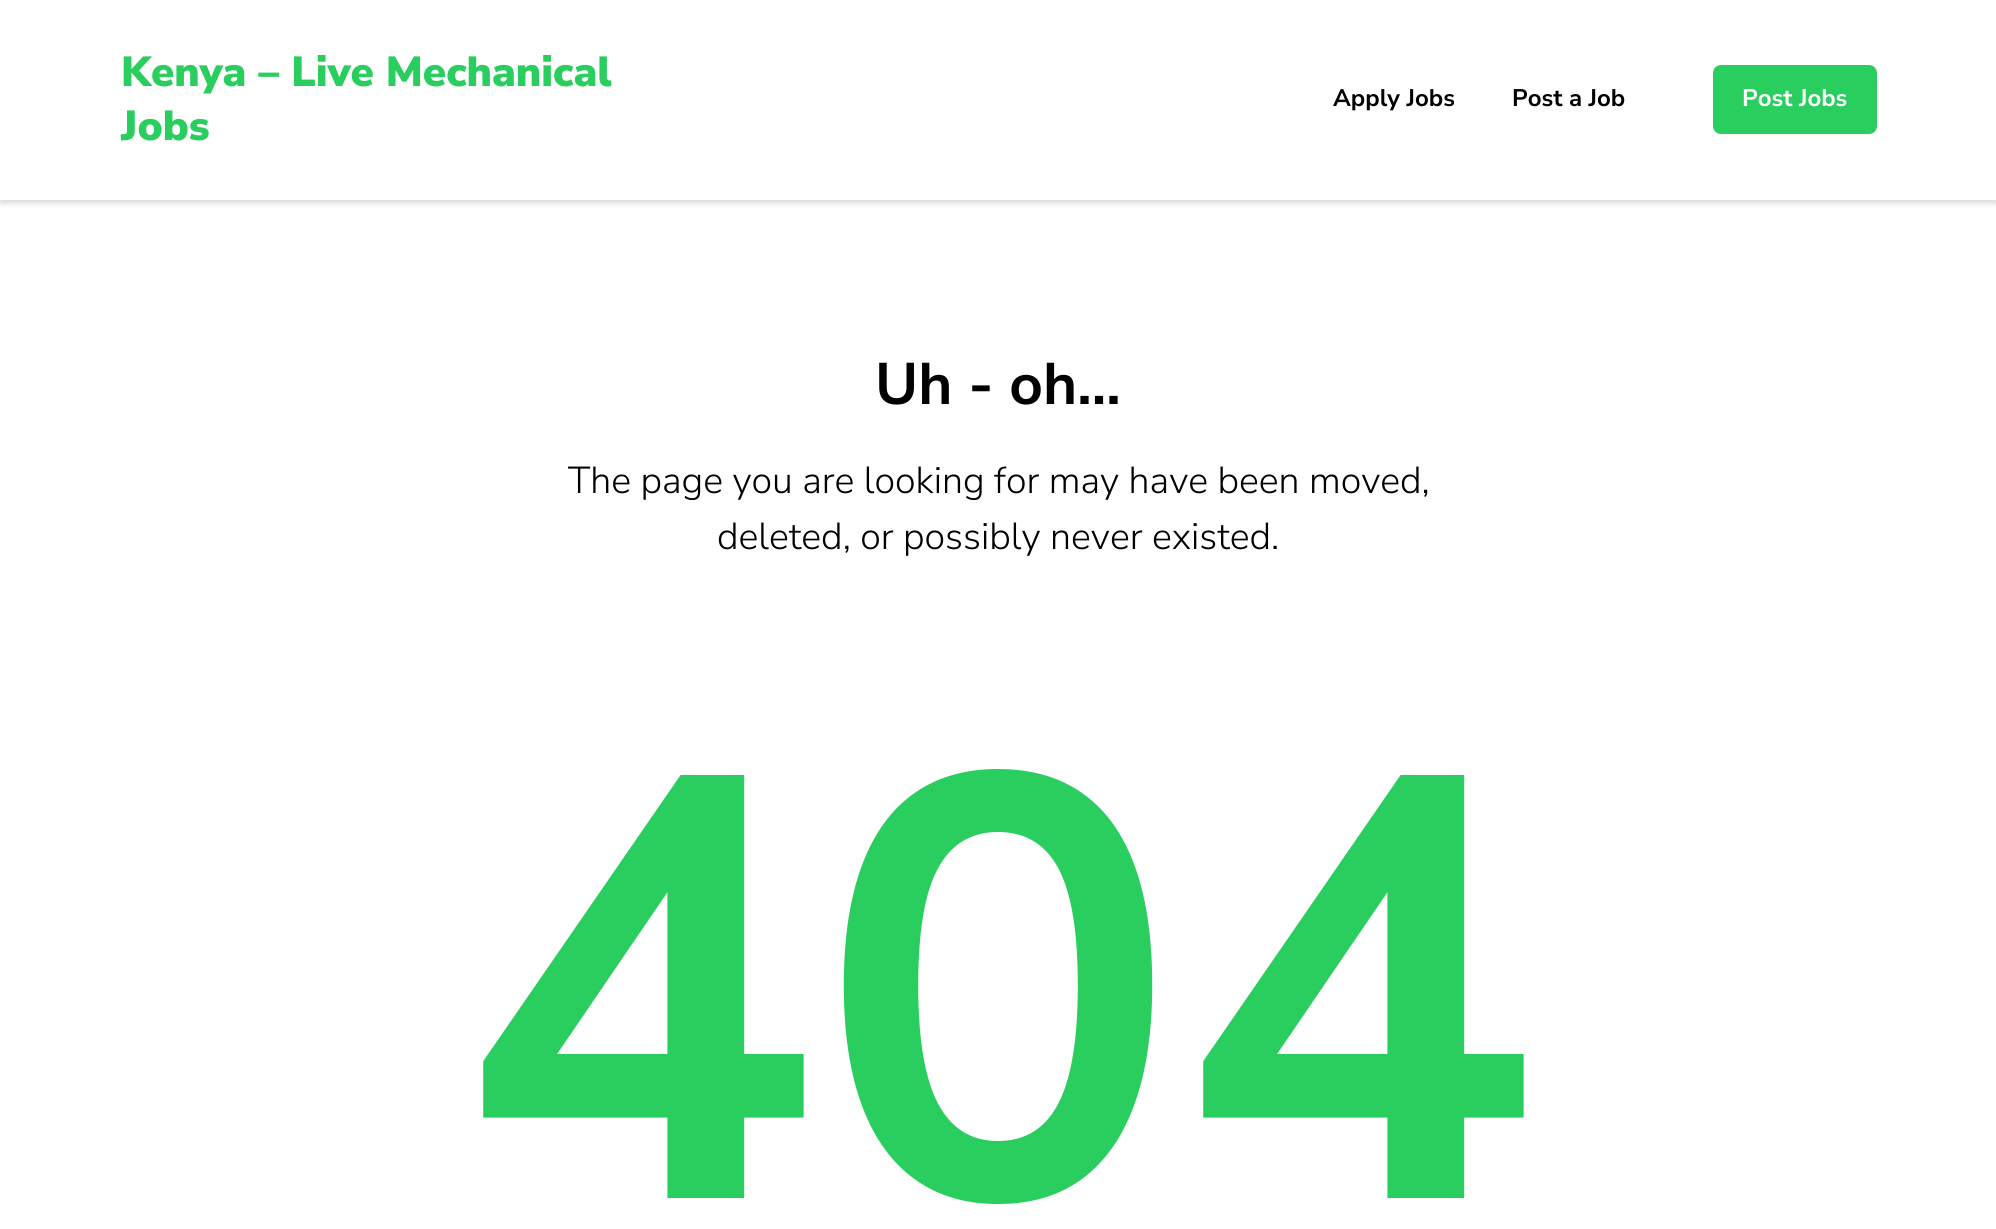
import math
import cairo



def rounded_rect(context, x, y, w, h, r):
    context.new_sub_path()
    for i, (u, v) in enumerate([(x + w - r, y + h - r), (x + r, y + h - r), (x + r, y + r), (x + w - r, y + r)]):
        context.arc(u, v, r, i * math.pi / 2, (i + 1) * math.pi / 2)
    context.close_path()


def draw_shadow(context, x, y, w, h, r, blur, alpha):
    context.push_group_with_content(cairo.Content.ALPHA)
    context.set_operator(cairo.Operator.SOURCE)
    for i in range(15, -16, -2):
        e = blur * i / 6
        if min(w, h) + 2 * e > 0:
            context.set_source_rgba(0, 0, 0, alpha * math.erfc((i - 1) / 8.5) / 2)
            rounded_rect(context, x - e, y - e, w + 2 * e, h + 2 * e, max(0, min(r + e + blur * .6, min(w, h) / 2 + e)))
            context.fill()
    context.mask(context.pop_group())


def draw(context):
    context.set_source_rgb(1, 1, 1)
    context.paint()
    context.save()
    context.set_fill_rule(cairo.FillRule.EVEN_ODD)
    context.new_path()
    context.move_to(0, 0)
    context.line_to(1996, 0)
    context.line_to(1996, 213)
    context.line_to(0, 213)
    context.close_path()
    context.move_to(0, 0)
    context.line_to(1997, 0)
    context.line_to(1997, 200)
    context.line_to(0, 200)
    context.close_path()
    context.clip()
    context.set_source_rgb(0, 0, 0)
    draw_shadow(context, 0, 3, 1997, 200, 0, 3, 0.16)
    context.restore()
    context.set_source_rgb(42 / 255, 206 / 255, 94 / 255)
    rounded_rect(context, 1714, 66, 162, 67, 7)
    context.fill_preserve()
    context.stroke()
    context.select_font_face("Nunito Sans Black")
    context.set_font_size(42)
    context.move_to(121, 86)
    context.show_text("Kenya – Live Mechanical")
    context.move_to(121, 140)
    context.show_text("Jobs")
    context.select_font_face("Nunito Sans", cairo.FontSlant.NORMAL, cairo.FontWeight.BOLD)
    context.set_font_size(24)
    context.set_source_rgb(0, 0, 0)
    context.move_to(1333, 106)
    context.show_text("Apply Jobs")
    context.move_to(1512, 106)
    context.show_text("Post a Job")
    context.set_source_rgb(1, 1, 1)
    context.move_to(1742, 106)
    context.show_text("Post Jobs")
    context.set_font_size(58.5)
    context.set_source_rgb(0, 0, 0)
    context.move_to(875, 404)
    context.show_text("Uh - oh...")
    context.select_font_face("Nunito Sans Light")
    context.set_font_size(37.5)
    context.move_to(568, 493)
    context.show_text("The page you are looking for may have been moved,")
    context.move_to(717, 549)
    context.show_text("deleted, or possibly never existed.")
    context.select_font_face("Nunito Sans", cairo.FontSlant.NORMAL, cairo.FontWeight.BOLD)
    context.set_font_size(600)
    context.set_source_rgb(42 / 255, 206 / 255, 94 / 255)
    context.move_to(458, 1198)
    context.show_text("404")


surface = cairo.ImageSurface(cairo.Format.RGB24, 1996, 1229)
context = cairo.Context(surface)
options = cairo.FontOptions()
options.set_hint_metrics(cairo.HintMetrics.OFF)
options.set_hint_style(cairo.HintStyle.NONE)
context.set_font_options(options)
context.set_miter_limit(4)
draw(context)
surface.write_to_png("out.png")
